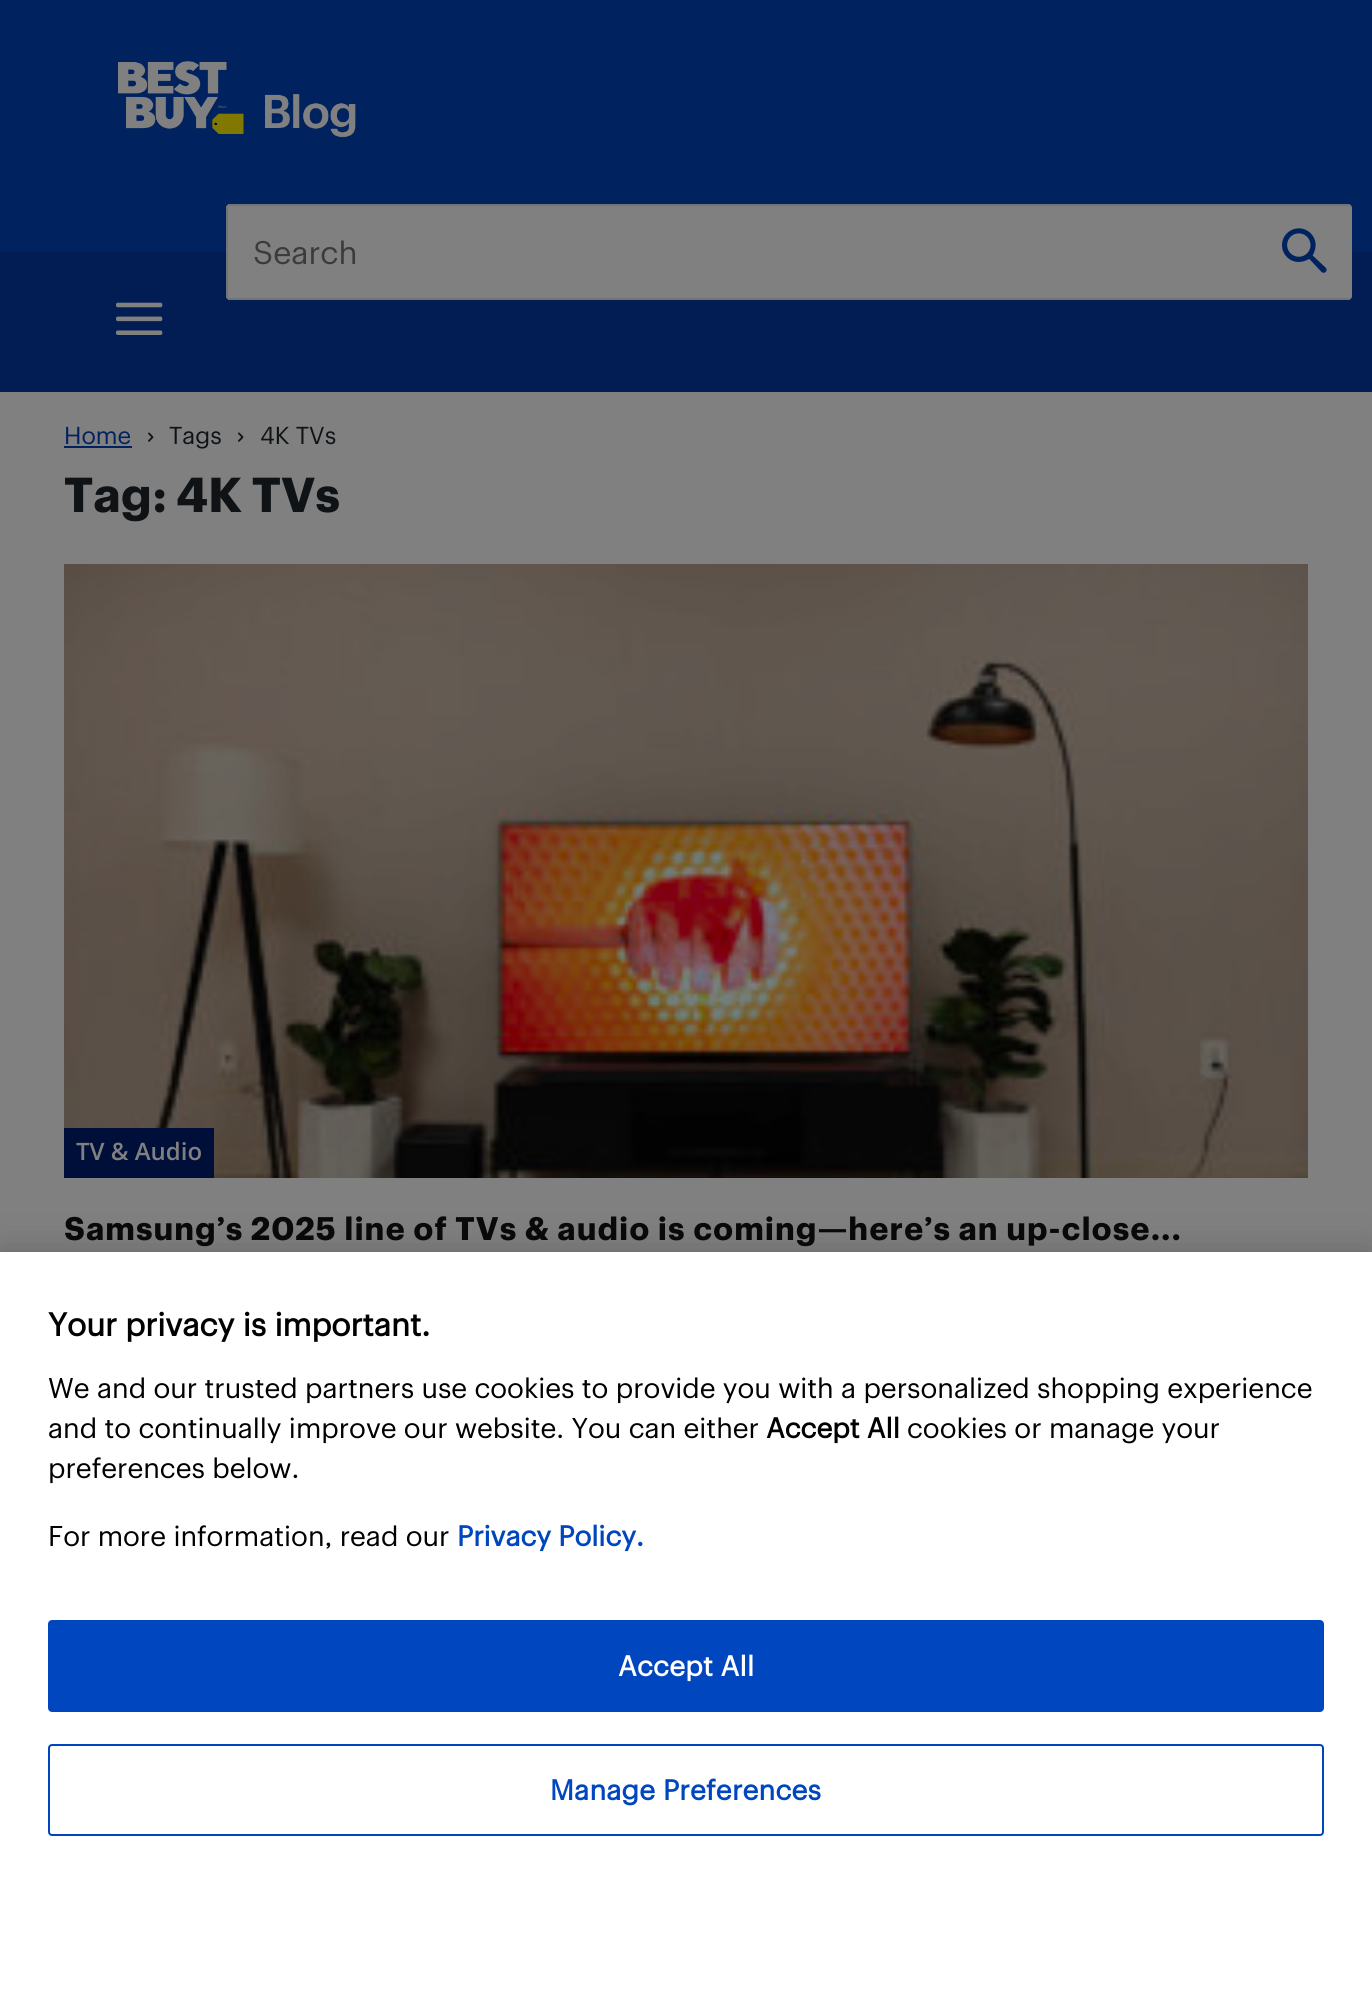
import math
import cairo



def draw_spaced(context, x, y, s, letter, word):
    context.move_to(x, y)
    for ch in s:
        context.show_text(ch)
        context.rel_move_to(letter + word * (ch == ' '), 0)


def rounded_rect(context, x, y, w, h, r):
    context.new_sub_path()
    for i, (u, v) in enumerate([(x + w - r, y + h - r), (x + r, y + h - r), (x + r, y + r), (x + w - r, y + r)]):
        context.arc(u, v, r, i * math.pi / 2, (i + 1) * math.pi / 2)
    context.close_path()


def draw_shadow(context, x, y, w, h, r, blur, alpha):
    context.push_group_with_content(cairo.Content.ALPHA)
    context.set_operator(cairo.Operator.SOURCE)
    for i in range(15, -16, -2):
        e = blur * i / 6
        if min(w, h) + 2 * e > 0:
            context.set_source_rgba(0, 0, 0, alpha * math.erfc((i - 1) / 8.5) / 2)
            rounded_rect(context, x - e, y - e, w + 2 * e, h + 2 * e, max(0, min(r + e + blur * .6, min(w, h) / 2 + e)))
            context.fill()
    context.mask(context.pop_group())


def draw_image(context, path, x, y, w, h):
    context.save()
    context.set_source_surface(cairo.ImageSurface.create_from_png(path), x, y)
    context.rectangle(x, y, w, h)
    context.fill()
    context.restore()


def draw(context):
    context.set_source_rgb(128 / 255, 128 / 255, 128 / 255)
    context.paint()
    context.set_source_rgb(0, 35 / 255, 95 / 255)
    context.rectangle(0, 0, 1372, 252)
    context.fill()
    draw_image(context, "images/1.png", 118, 61, 238, 77)
    context.set_source_rgb(1 / 255, 29 / 255, 83 / 255)
    context.rectangle(0, 252, 1372, 140)
    context.fill()
    context.set_source_rgb(128 / 255, 128 / 255, 128 / 255)
    rounded_rect(context, 226, 204, 1126, 96, 4)
    context.fill()
    context.set_source_rgb(112 / 255, 115 / 255, 120 / 255)
    context.rectangle(228, 204, 1122, 2)
    context.fill()
    context.rectangle(228, 298, 1122, 2)
    context.fill()
    context.rectangle(226, 206, 2, 92)
    context.fill()
    draw_image(context, "images/2.png", 1282, 228, 45, 45)
    draw_image(context, "images/3.png", 116, 302, 47, 33)
    context.set_source_rgb(0, 35 / 255, 95 / 255)
    context.rectangle(64, 446, 68, 2)
    context.fill()
    draw_image(context, "images/4.png", 148, 432, 6, 10)
    draw_image(context, "images/4.png", 238, 432, 6, 10)
    draw_image(context, "images/5.png", 64, 564, 1244, 614)
    context.set_source_rgb(0, 15 / 255, 58 / 255)
    context.rectangle(64, 1128, 150, 50)
    context.fill()
    context.set_source_rgb(0, 0, 0)
    draw_shadow(context, 0, 1252, 1372, 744, 0, 18, 0.2)
    context.set_source_rgb(1, 1, 1)
    context.rectangle(0, 1252, 1372, 743)
    context.fill()
    context.set_source_rgb(0, 70 / 255, 190 / 255)
    rounded_rect(context, 49, 1621, 1274, 90, 3)
    context.fill_preserve()
    context.stroke()
    rounded_rect(context, 49, 1745, 1274, 90, 3)
    context.stroke()
    context.select_font_face("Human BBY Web")
    context.set_font_size(32)
    context.set_source_rgb(59 / 255, 59 / 255, 59 / 255)
    context.move_to(253, 264)
    context.show_text("Search")
    context.set_font_size(24)
    context.set_source_rgb(0, 35 / 255, 95 / 255)
    context.move_to(64, 444)
    context.show_text("Home")
    context.set_source_rgb(15 / 255, 19 / 255, 22 / 255)
    context.move_to(169, 444)
    context.show_text("Tags")
    context.move_to(260, 444)
    context.show_text("4K TVs")
    context.select_font_face("Human BBY Web", cairo.FontSlant.NORMAL, cairo.FontWeight.BOLD)
    context.set_font_size(48)
    context.move_to(64, 512)
    context.show_text("Tag: 4K TVs")
    context.select_font_face("Open Sans SemiBold")
    context.set_font_size(24)
    context.set_source_rgb(128 / 255, 128 / 255, 128 / 255)
    context.move_to(76, 1160)
    context.show_text("TV & Audio")
    context.select_font_face("Human BBY Web", cairo.FontSlant.NORMAL, cairo.FontWeight.BOLD)
    context.set_font_size(32)
    context.set_source_rgb(9 / 255, 9 / 255, 9 / 255)
    draw_spaced(context, 64, 1240, "Samsung’s 2025 line of TVs & audio is coming—here’s an up-close...", 1, 0)
    context.select_font_face("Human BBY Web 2", cairo.FontSlant.NORMAL, cairo.FontWeight.BOLD)
    context.set_source_rgb(0, 0, 0)
    context.move_to(48, 1336)
    context.show_text("Your privacy is important.")
    context.select_font_face("Human BBY Web")
    context.set_font_size(28)
    context.move_to(48, 1398)
    context.show_text("We and our trusted partners use cookies to provide you with a personalized shopping experience")
    context.move_to(48, 1438)
    context.show_text("and to continually improve our website. You can either")
    context.select_font_face("Human BBY Web 2", cairo.FontSlant.NORMAL, cairo.FontWeight.BOLD)
    context.move_to(766, 1438)
    context.show_text("Accept All")
    context.select_font_face("Human BBY Web")
    context.move_to(907, 1438)
    context.show_text("cookies or manage your")
    context.move_to(48, 1478)
    context.show_text("preferences below.")
    context.move_to(48, 1546)
    context.show_text("For more information, read our")
    context.select_font_face("Human BBY Web 2", cairo.FontSlant.NORMAL, cairo.FontWeight.BOLD)
    context.set_source_rgb(0, 70 / 255, 190 / 255)
    context.move_to(457, 1546)
    context.show_text("Privacy Policy.")
    context.set_source_rgb(1, 1, 1)
    draw_spaced(context, 618, 1676, "Accept All", 0.25, 0)
    context.set_source_rgb(0, 70 / 255, 190 / 255)
    draw_spaced(context, 550, 1800, "Manage Preferences", 0.25, 0)


surface = cairo.ImageSurface(cairo.Format.RGB24, 1372, 1995)
context = cairo.Context(surface)
options = cairo.FontOptions()
options.set_hint_metrics(cairo.HintMetrics.OFF)
options.set_hint_style(cairo.HintStyle.NONE)
context.set_font_options(options)
context.set_miter_limit(4)
draw(context)
surface.write_to_png("out.png")
